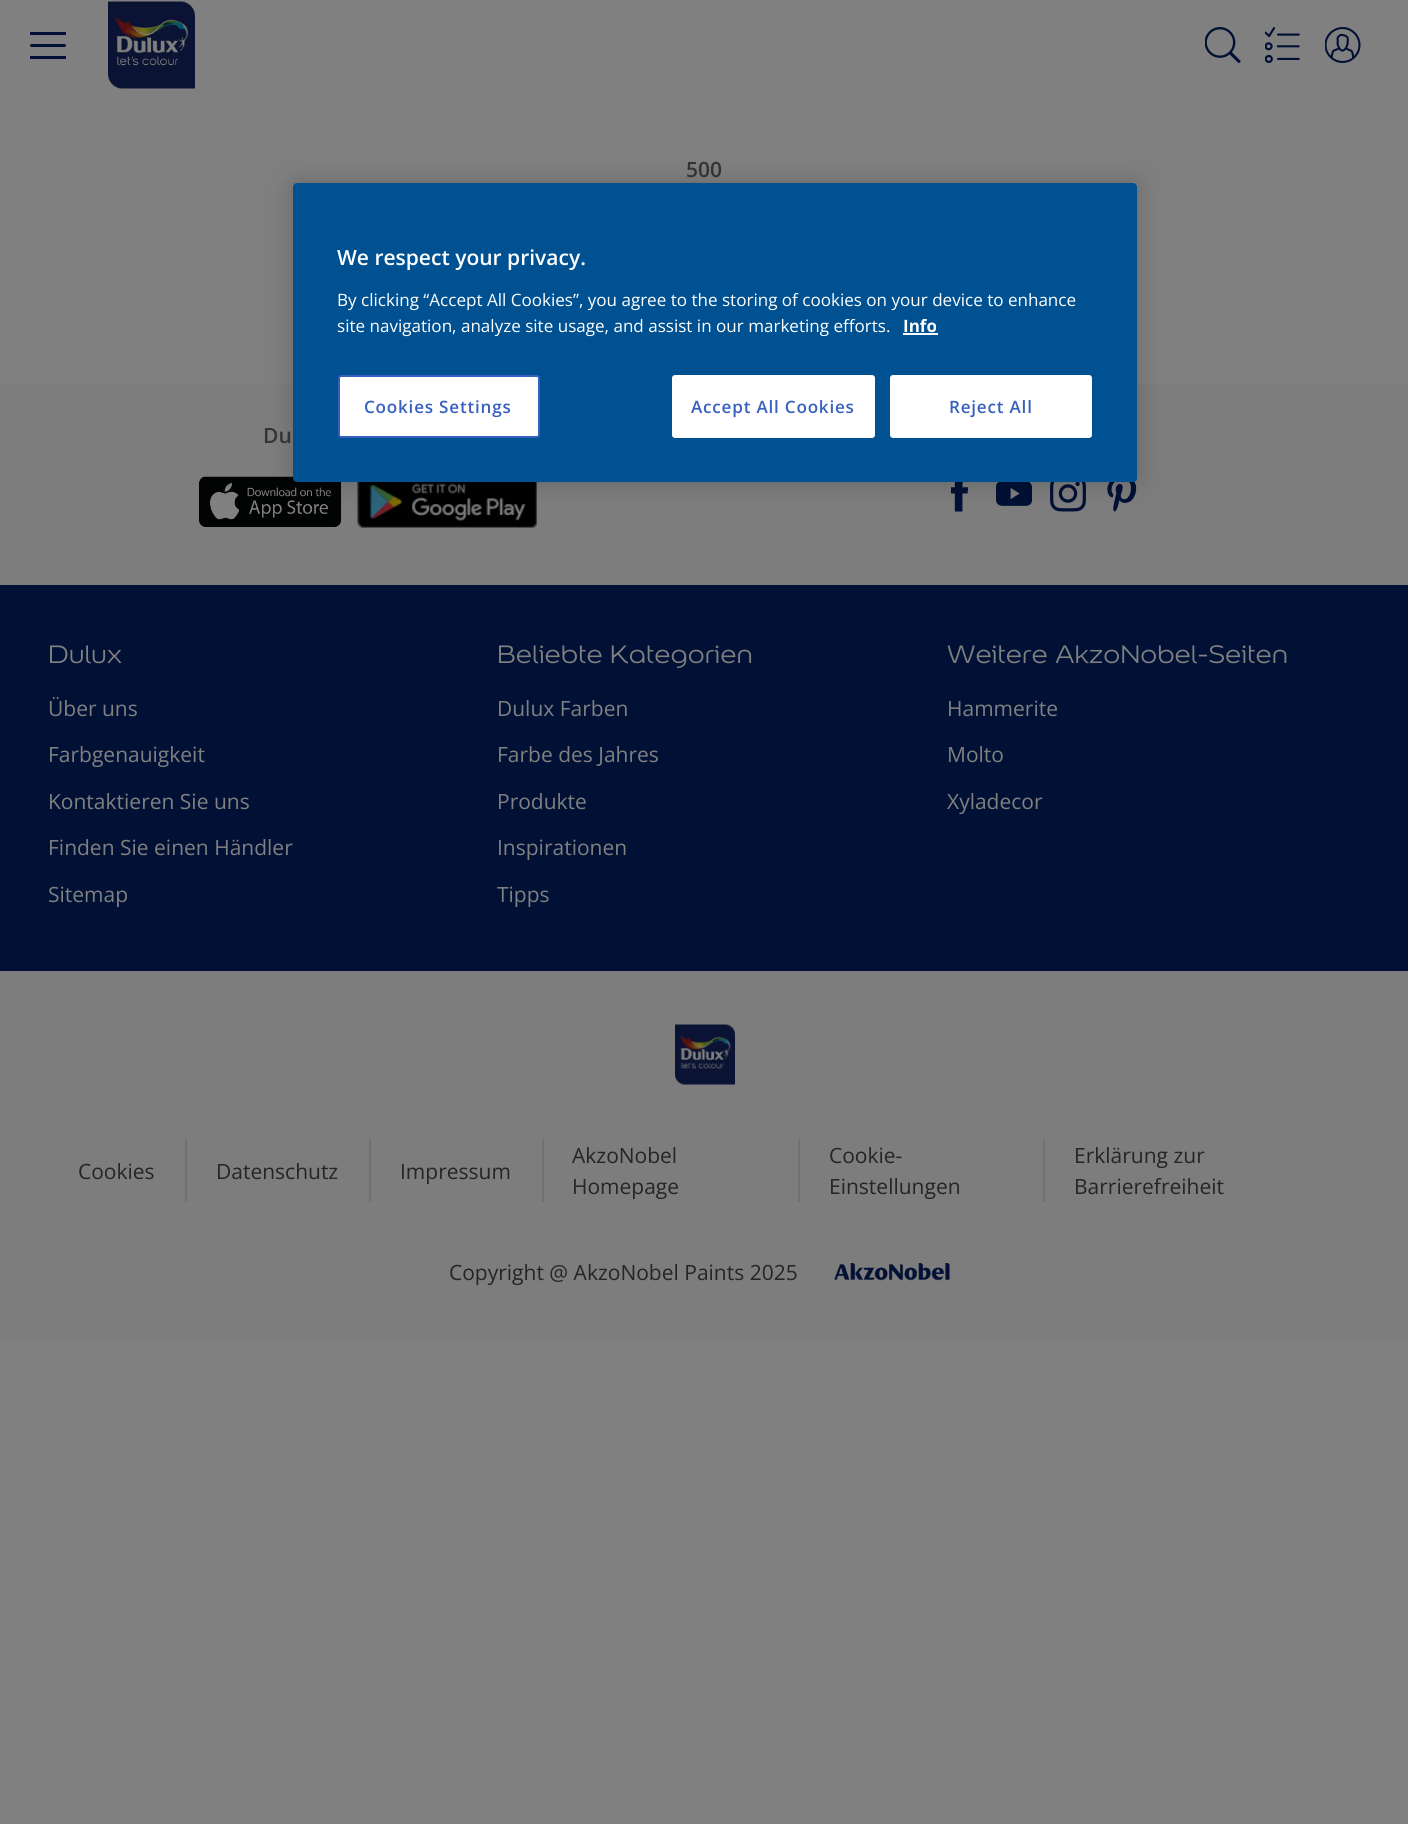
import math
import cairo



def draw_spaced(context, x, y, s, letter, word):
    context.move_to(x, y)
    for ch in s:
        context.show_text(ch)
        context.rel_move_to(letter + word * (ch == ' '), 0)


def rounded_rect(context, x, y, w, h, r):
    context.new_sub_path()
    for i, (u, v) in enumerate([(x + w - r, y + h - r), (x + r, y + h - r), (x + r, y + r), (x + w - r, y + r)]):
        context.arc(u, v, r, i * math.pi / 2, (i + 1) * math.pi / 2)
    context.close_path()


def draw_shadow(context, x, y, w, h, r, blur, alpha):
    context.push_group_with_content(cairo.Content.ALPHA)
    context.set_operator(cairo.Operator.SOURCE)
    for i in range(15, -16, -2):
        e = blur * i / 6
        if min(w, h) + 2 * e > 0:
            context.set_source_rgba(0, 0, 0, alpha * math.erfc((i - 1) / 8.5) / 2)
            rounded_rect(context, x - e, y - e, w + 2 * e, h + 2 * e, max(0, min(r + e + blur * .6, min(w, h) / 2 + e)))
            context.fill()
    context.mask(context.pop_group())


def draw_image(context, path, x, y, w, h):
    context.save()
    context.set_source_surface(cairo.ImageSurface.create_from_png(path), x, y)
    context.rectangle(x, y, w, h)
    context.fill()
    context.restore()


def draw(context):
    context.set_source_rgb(128 / 255, 128 / 255, 128 / 255)
    context.paint()
    context.set_source_rgb(1 / 255, 17 / 255, 53 / 255)
    rounded_rect(context, 30, 44, 36, 3, 1.5)
    context.fill()
    context.rectangle(30, 32, 36, 3)
    context.fill()
    context.rectangle(30, 56, 36, 3)
    context.fill()
    draw_image(context, "images/1.png", 108, 1, 87, 88)
    draw_image(context, "images/2.png", 1205, 27, 36, 36)
    draw_image(context, "images/3.png", 1265, 27, 35, 36)
    draw_image(context, "images/4.png", 1325, 27, 36, 36)
    context.set_source_rgb(125 / 255, 125 / 255, 125 / 255)
    context.rectangle(0, 384, 1408, 201)
    context.fill()
    draw_image(context, "images/5.png", 199, 476, 143, 51)
    draw_image(context, "images/6.png", 357, 482, 180, 46)
    draw_image(context, "images/7.png", 951, 482, 18, 30)
    draw_image(context, "images/8.png", 996, 482, 36, 24)
    draw_image(context, "images/9.png", 1050, 482, 36, 30)
    draw_image(context, "images/10.png", 1107, 481, 30, 31)
    context.set_source_rgb(1 / 255, 17 / 255, 53 / 255)
    context.rectangle(0, 585, 1408, 386)
    context.fill()
    context.set_source_rgb(125 / 255, 125 / 255, 125 / 255)
    context.rectangle(0, 971, 1408, 370)
    context.fill()
    draw_image(context, "images/11.png", 675, 1024, 60, 61)
    context.set_source_rgb(113 / 255, 113 / 255, 113 / 255)
    context.rectangle(185, 1139, 2, 63)
    context.fill()
    context.rectangle(369, 1139, 2, 63)
    context.fill()
    context.rectangle(542, 1139, 2, 63)
    context.fill()
    context.rectangle(798, 1139, 2, 63)
    context.fill()
    context.rectangle(1043, 1139, 2, 63)
    context.fill()
    draw_image(context, "images/12.png", 834, 1263, 116, 18)
    context.set_source_rgb(0, 0, 0)
    draw_shadow(context, 293, 183, 844, 299, 4, 13.5, 0.2)
    context.set_source_rgb(0, 81 / 255, 146 / 255)
    rounded_rect(context, 293, 183, 844, 299, 4)
    context.fill()
    context.set_source_rgb(250 / 255, 251 / 255, 1)
    context.rectangle(903, 333, 35, 2)
    context.fill()
    context.set_source_rgb(1, 1, 1)
    rounded_rect(context, 339, 376, 200, 61, 2)
    context.fill_preserve()
    context.set_source_rgb(56 / 255, 96 / 255, 190 / 255)
    context.stroke()
    context.set_source_rgb(1, 1, 1)
    rounded_rect(context, 673, 376, 201, 61, 2)
    context.fill_preserve()
    context.stroke()
    rounded_rect(context, 891, 376, 200, 61, 2)
    context.fill_preserve()
    context.stroke()
    context.select_font_face("Open Sans SemiBold")
    context.set_font_size(21)
    context.set_source_rgb(51 / 255, 51 / 255, 51 / 255)
    context.move_to(686, 177)
    context.show_text("500")
    context.move_to(263, 443)
    context.show_text("Du")
    context.select_font_face("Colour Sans")
    context.set_font_size(27)
    context.set_source_rgb(128 / 255, 128 / 255, 128 / 255)
    context.move_to(48, 663)
    context.show_text("Dulux")
    context.select_font_face("Open Sans")
    context.set_font_size(21)
    context.move_to(48, 716)
    context.show_text("Über uns")
    context.move_to(48, 762)
    context.show_text("Farbgenauigkeit")
    context.move_to(48, 809)
    context.show_text("Kontaktieren Sie uns")
    context.move_to(48, 855)
    context.show_text("Finden Sie einen Händler")
    context.move_to(48, 902)
    context.show_text("Sitemap")
    context.select_font_face("Colour Sans")
    context.set_font_size(27)
    context.move_to(497, 663)
    context.show_text("Beliebte Kategorien")
    context.select_font_face("Open Sans")
    context.set_font_size(21)
    context.move_to(497, 716)
    context.show_text("Dulux Farben")
    context.move_to(497, 762)
    context.show_text("Farbe des Jahres")
    context.move_to(497, 809)
    context.show_text("Produkte")
    context.move_to(497, 855)
    context.show_text("Inspirationen")
    context.move_to(497, 902)
    context.show_text("Tipps")
    context.select_font_face("Colour Sans")
    context.set_font_size(27)
    context.move_to(947, 663)
    context.show_text("Weitere AkzoNobel-Seiten")
    context.select_font_face("Open Sans")
    context.set_font_size(21)
    context.move_to(947, 716)
    context.show_text("Hammerite")
    context.move_to(947, 762)
    context.show_text("Molto")
    context.move_to(947, 809)
    context.show_text("Xyladecor")
    context.set_source_rgb(37 / 255, 37 / 255, 37 / 255)
    context.move_to(78, 1179)
    context.show_text("Cookies")
    context.move_to(216, 1179)
    context.show_text("Datenschutz")
    context.move_to(400, 1179)
    context.show_text("Impressum")
    context.move_to(572, 1163)
    context.show_text("AkzoNobel")
    context.move_to(572, 1194)
    context.show_text("Homepage")
    context.move_to(829, 1163)
    context.show_text("Cookie-")
    context.move_to(829, 1194)
    context.show_text("Einstellungen")
    context.move_to(1074, 1163)
    context.show_text("Erklärung zur")
    context.move_to(1074, 1194)
    context.show_text("Barrierefreiheit")
    context.move_to(449, 1280)
    context.show_text("Copyright @ AkzoNobel Paints 2025")
    context.select_font_face("Open Sans SemiBold")
    context.set_source_rgb(1, 1, 1)
    context.move_to(337, 265)
    context.show_text("We respect your privacy.")
    context.select_font_face("Open Sans")
    context.set_font_size(17.05)
    context.move_to(337, 306)
    context.show_text("By clicking “Accept All Cookies”, you agree to the storing of cookies on your device to enhance")
    context.move_to(337, 332)
    context.show_text("site navigation, analyze site usage, and assist in our marketing efforts.")
    context.select_font_face("Open Sans", cairo.FontSlant.NORMAL, cairo.FontWeight.BOLD)
    context.move_to(903, 332)
    context.show_text("Info")
    context.select_font_face("Open Sans SemiBold")
    context.set_source_rgb(56 / 255, 96 / 255, 190 / 255)
    draw_spaced(context, 364, 413, "Cookies Settings", 0.8, 0)
    draw_spaced(context, 691, 413, "Accept All Cookies", 0.8, 0)
    draw_spaced(context, 949, 413, "Reject All", 0.8, 0)


surface = cairo.ImageSurface(cairo.Format.RGB24, 1408, 1824)
context = cairo.Context(surface)
options = cairo.FontOptions()
options.set_hint_metrics(cairo.HintMetrics.OFF)
options.set_hint_style(cairo.HintStyle.NONE)
context.set_font_options(options)
context.set_miter_limit(4)
draw(context)
surface.write_to_png("out.png")
